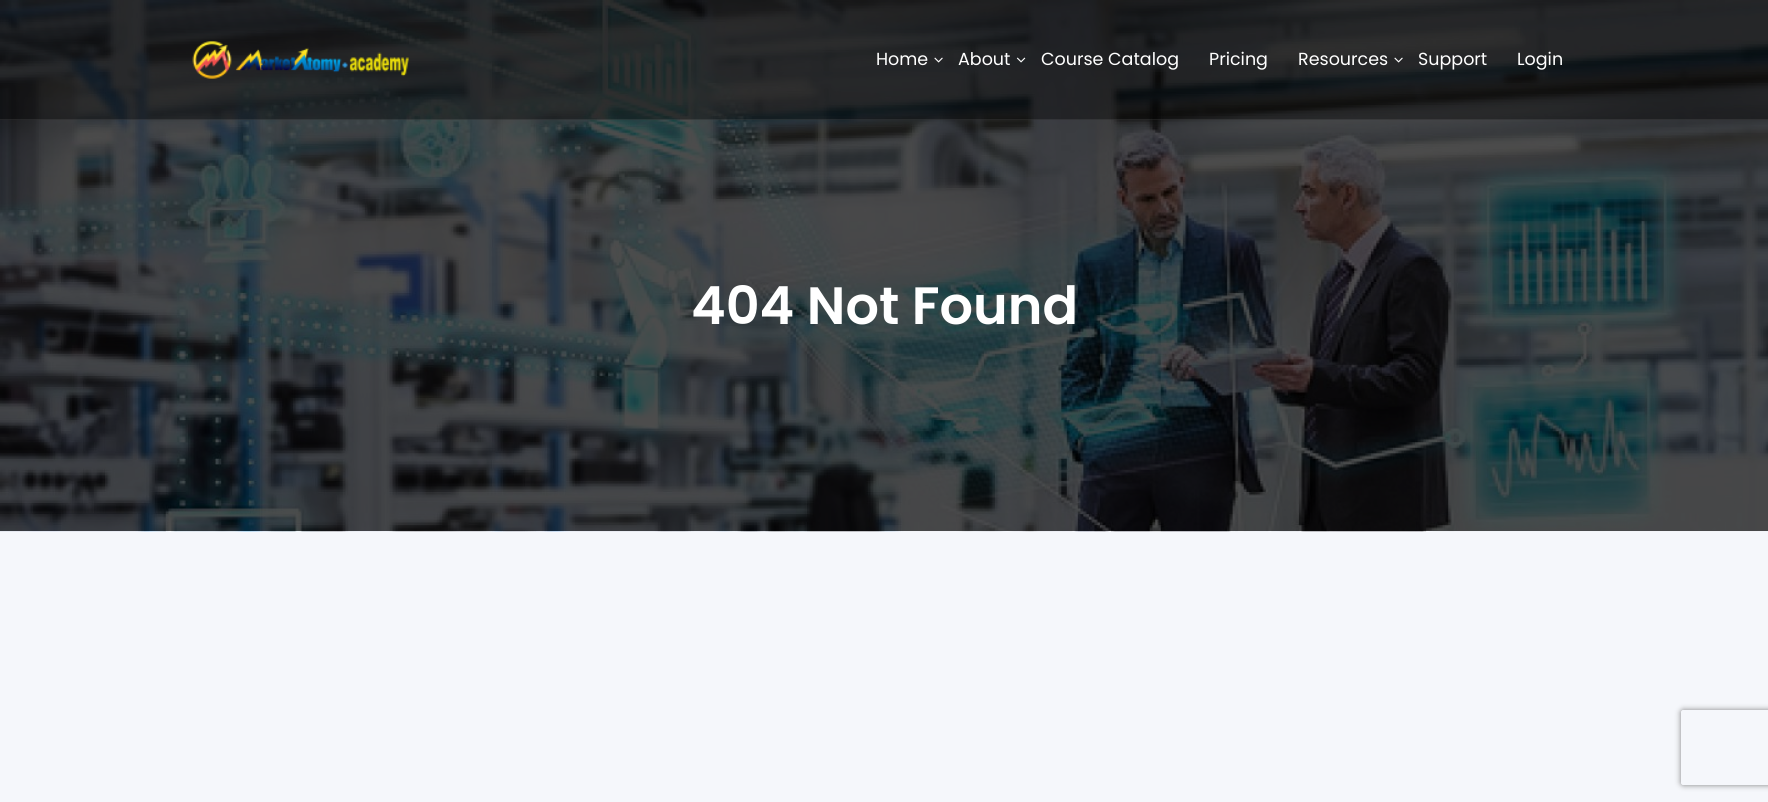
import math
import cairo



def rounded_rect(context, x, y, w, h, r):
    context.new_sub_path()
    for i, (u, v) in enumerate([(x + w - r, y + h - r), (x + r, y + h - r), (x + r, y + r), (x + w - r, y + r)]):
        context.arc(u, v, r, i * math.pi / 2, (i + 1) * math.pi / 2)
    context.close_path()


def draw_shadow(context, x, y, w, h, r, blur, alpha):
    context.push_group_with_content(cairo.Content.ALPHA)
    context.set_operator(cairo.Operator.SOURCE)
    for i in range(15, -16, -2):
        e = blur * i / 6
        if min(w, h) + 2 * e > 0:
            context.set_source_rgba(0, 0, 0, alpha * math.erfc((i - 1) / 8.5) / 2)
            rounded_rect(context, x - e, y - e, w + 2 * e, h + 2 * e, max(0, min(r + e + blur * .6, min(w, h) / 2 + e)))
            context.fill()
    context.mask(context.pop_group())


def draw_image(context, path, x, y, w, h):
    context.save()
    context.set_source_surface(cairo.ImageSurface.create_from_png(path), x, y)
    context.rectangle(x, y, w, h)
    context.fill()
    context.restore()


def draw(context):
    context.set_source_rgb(245 / 255, 247 / 255, 251 / 255)
    context.paint()
    draw_image(context, "images/5.png", 0, 0, 1768, 532)
    context.set_source_rgba(0, 0, 0, 0.4)
    context.rectangle(0, 0, 1768, 120)
    context.fill()
    context.set_source_rgba(1, 1, 1, 0.08)
    context.rectangle(0, 119, 1768, 1)
    context.fill()
    draw_image(context, "images/1.png", 192, 41, 217, 38)
    draw_image(context, "images/2.png", 934, 57, 9, 6)
    draw_image(context, "images/3.png", 1016, 57, 10, 6)
    draw_image(context, "images/4.png", 1394, 57, 9, 6)
    context.save()
    context.set_fill_rule(cairo.FillRule.EVEN_ODD)
    context.new_path()
    context.move_to(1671, 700)
    context.line_to(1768, 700)
    context.line_to(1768, 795)
    context.line_to(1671, 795)
    context.close_path()
    context.move_to(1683.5, 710)
    context.line_to(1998.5, 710)
    context.curve_to(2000, 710, 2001, 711, 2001, 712.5)
    context.line_to(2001, 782.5)
    context.curve_to(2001, 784, 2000, 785, 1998.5, 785)
    context.line_to(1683.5, 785)
    context.curve_to(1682, 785, 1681, 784, 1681, 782.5)
    context.line_to(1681, 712.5)
    context.curve_to(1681, 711, 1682, 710, 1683.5, 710)
    context.close_path()
    context.clip()
    context.set_source_rgb(128 / 255, 128 / 255, 128 / 255)
    draw_shadow(context, 1681, 710, 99, 75, 2.5, 3, 1)
    context.restore()
    context.select_font_face("Poppins")
    context.set_font_size(17.5)
    context.set_source_rgb(1, 1, 1)
    context.move_to(876, 65)
    context.show_text("Home")
    context.move_to(958, 65)
    context.show_text("About")
    context.move_to(1041, 65)
    context.show_text("Course Catalog")
    context.move_to(1209, 65)
    context.show_text("Pricing")
    context.move_to(1298, 65)
    context.show_text("Resources")
    context.move_to(1418, 65)
    context.show_text("Support")
    context.move_to(1517, 65)
    context.show_text("Login")
    context.select_font_face("Poppins SemiBold")
    context.set_font_size(52.5)
    context.move_to(691, 324)
    context.show_text("404 Not Found")


surface = cairo.ImageSurface(cairo.Format.RGB24, 1768, 802)
context = cairo.Context(surface)
options = cairo.FontOptions()
options.set_hint_metrics(cairo.HintMetrics.OFF)
options.set_hint_style(cairo.HintStyle.NONE)
context.set_font_options(options)
context.set_miter_limit(4)
draw(context)
surface.write_to_png("out.png")
